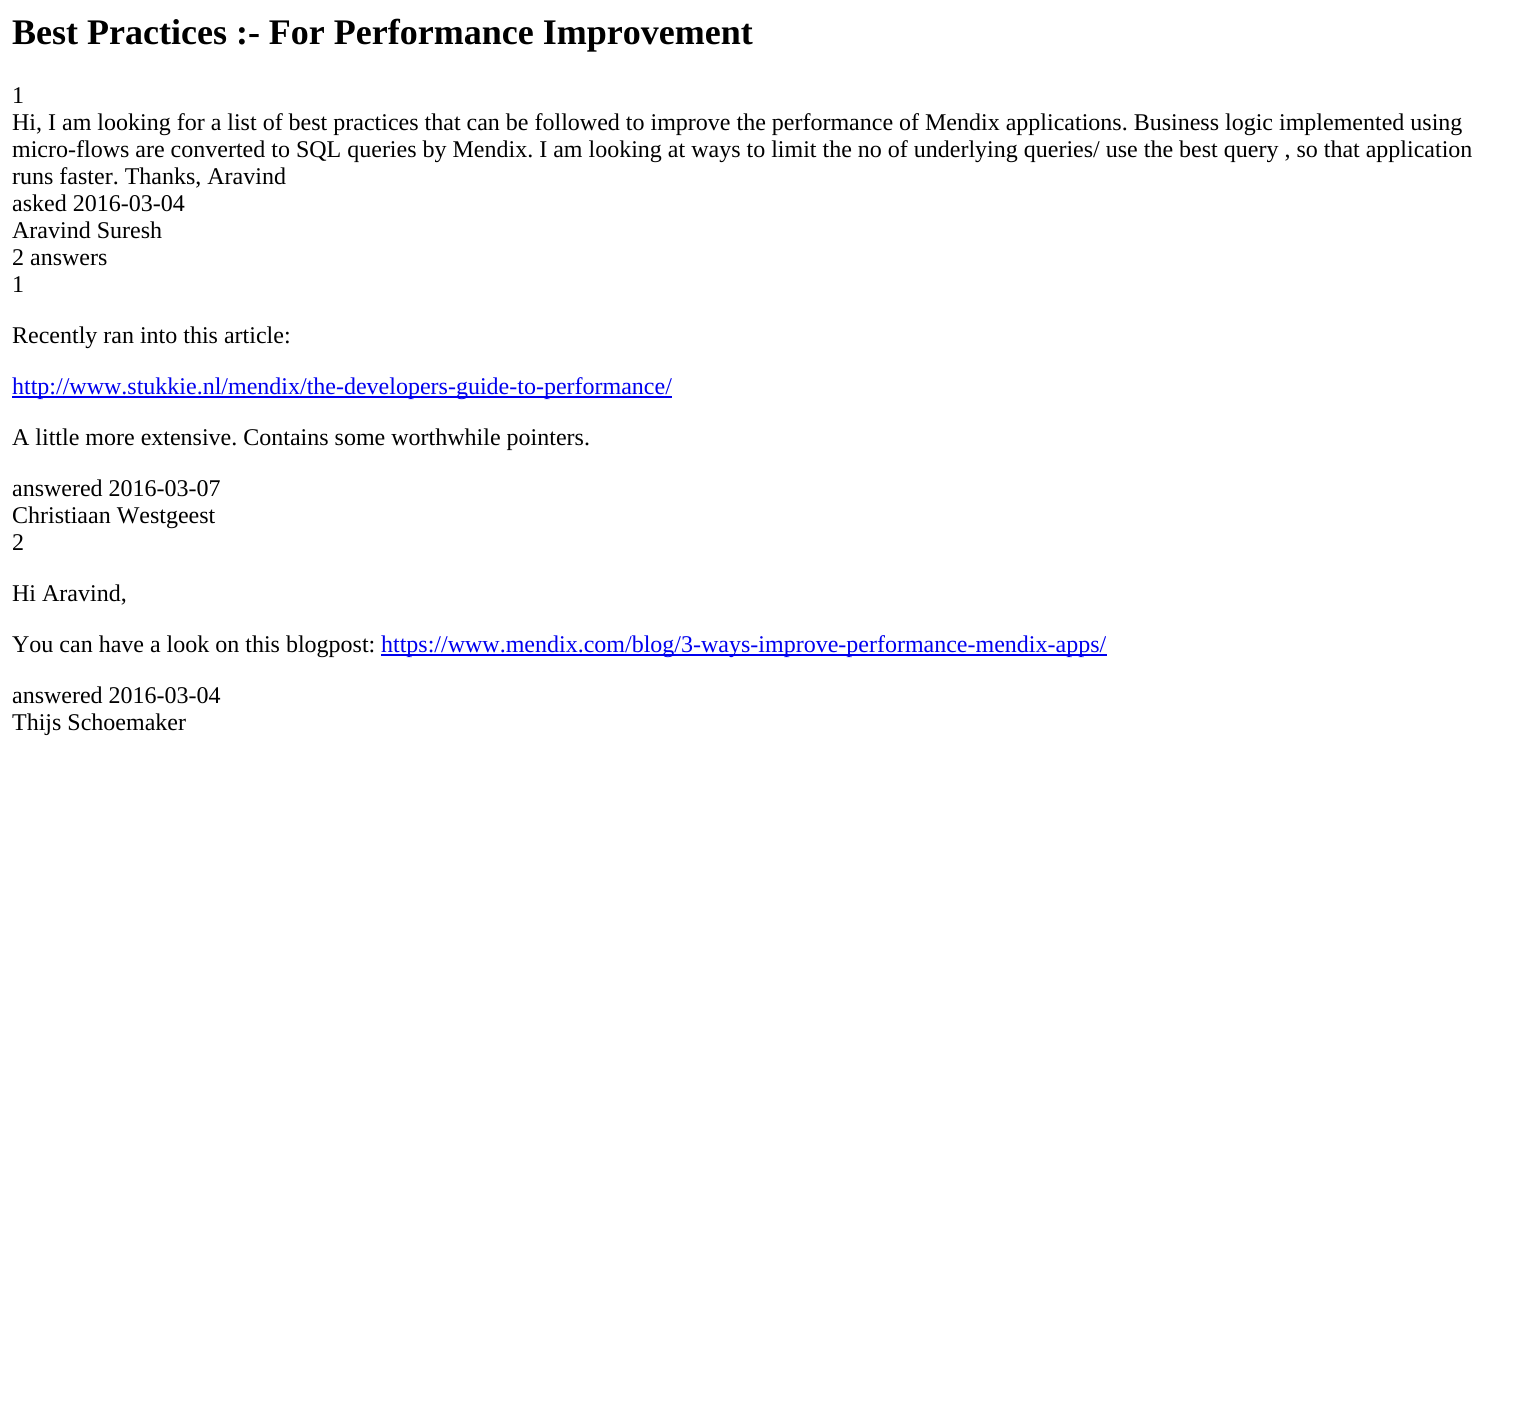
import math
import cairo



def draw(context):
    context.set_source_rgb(1, 1, 1)
    context.paint()
    context.set_source_rgb(0, 0, 238 / 255)
    context.rectangle(12, 396, 660, 2)
    context.fill()
    context.rectangle(381, 654, 726, 2)
    context.fill()
    context.select_font_face("Liberation Serif", cairo.FontSlant.NORMAL, cairo.FontWeight.BOLD)
    context.set_font_size(36)
    context.set_source_rgb(0, 0, 0)
    context.move_to(12, 44)
    context.show_text("Best Practices :- For Performance Improvement")
    context.select_font_face("Liberation Serif")
    context.set_font_size(24)
    context.move_to(12, 103)
    context.show_text("1")
    context.move_to(12, 130)
    context.show_text("Hi, I am looking for a list of best practices that can be followed to improve the performance of Mendix applications. Business logic implemented using")
    context.move_to(12, 157)
    context.show_text("micro-flows are converted to SQL queries by Mendix. I am looking at ways to limit the no of underlying queries/ use the best query , so that application")
    context.move_to(12, 184)
    context.show_text("runs faster. Thanks, Aravind")
    context.move_to(12, 211)
    context.show_text("asked 2016-03-04")
    context.move_to(12, 238)
    context.show_text("Aravind Suresh")
    context.move_to(12, 265)
    context.show_text("2 answers")
    context.move_to(12, 292)
    context.show_text("1")
    context.move_to(12, 343)
    context.show_text("Recently ran into this article:")
    context.set_source_rgb(0, 0, 238 / 255)
    context.move_to(12, 394)
    context.show_text("http://www.stukkie.nl/mendix/the-developers-guide-to-performance/")
    context.set_source_rgb(0, 0, 0)
    context.move_to(12, 445)
    context.show_text("A little more extensive. Contains some worthwhile pointers.")
    context.move_to(12, 496)
    context.show_text("answered 2016-03-07")
    context.move_to(12, 523)
    context.show_text("Christiaan Westgeest")
    context.move_to(12, 550)
    context.show_text("2")
    context.move_to(12, 601)
    context.show_text("Hi Aravind,")
    context.move_to(12, 652)
    context.show_text("You can have a look on this blogpost:")
    context.set_source_rgb(0, 0, 238 / 255)
    context.move_to(381, 652)
    context.show_text("https://www.mendix.com/blog/3-ways-improve-performance-mendix-apps/")
    context.set_source_rgb(0, 0, 0)
    context.move_to(12, 703)
    context.show_text("answered 2016-03-04")
    context.move_to(12, 730)
    context.show_text("Thijs Schoemaker")


surface = cairo.ImageSurface(cairo.Format.RGB24, 1531, 1410)
context = cairo.Context(surface)
options = cairo.FontOptions()
options.set_hint_metrics(cairo.HintMetrics.OFF)
options.set_hint_style(cairo.HintStyle.NONE)
context.set_font_options(options)
context.set_miter_limit(4)
draw(context)
surface.write_to_png("out.png")
